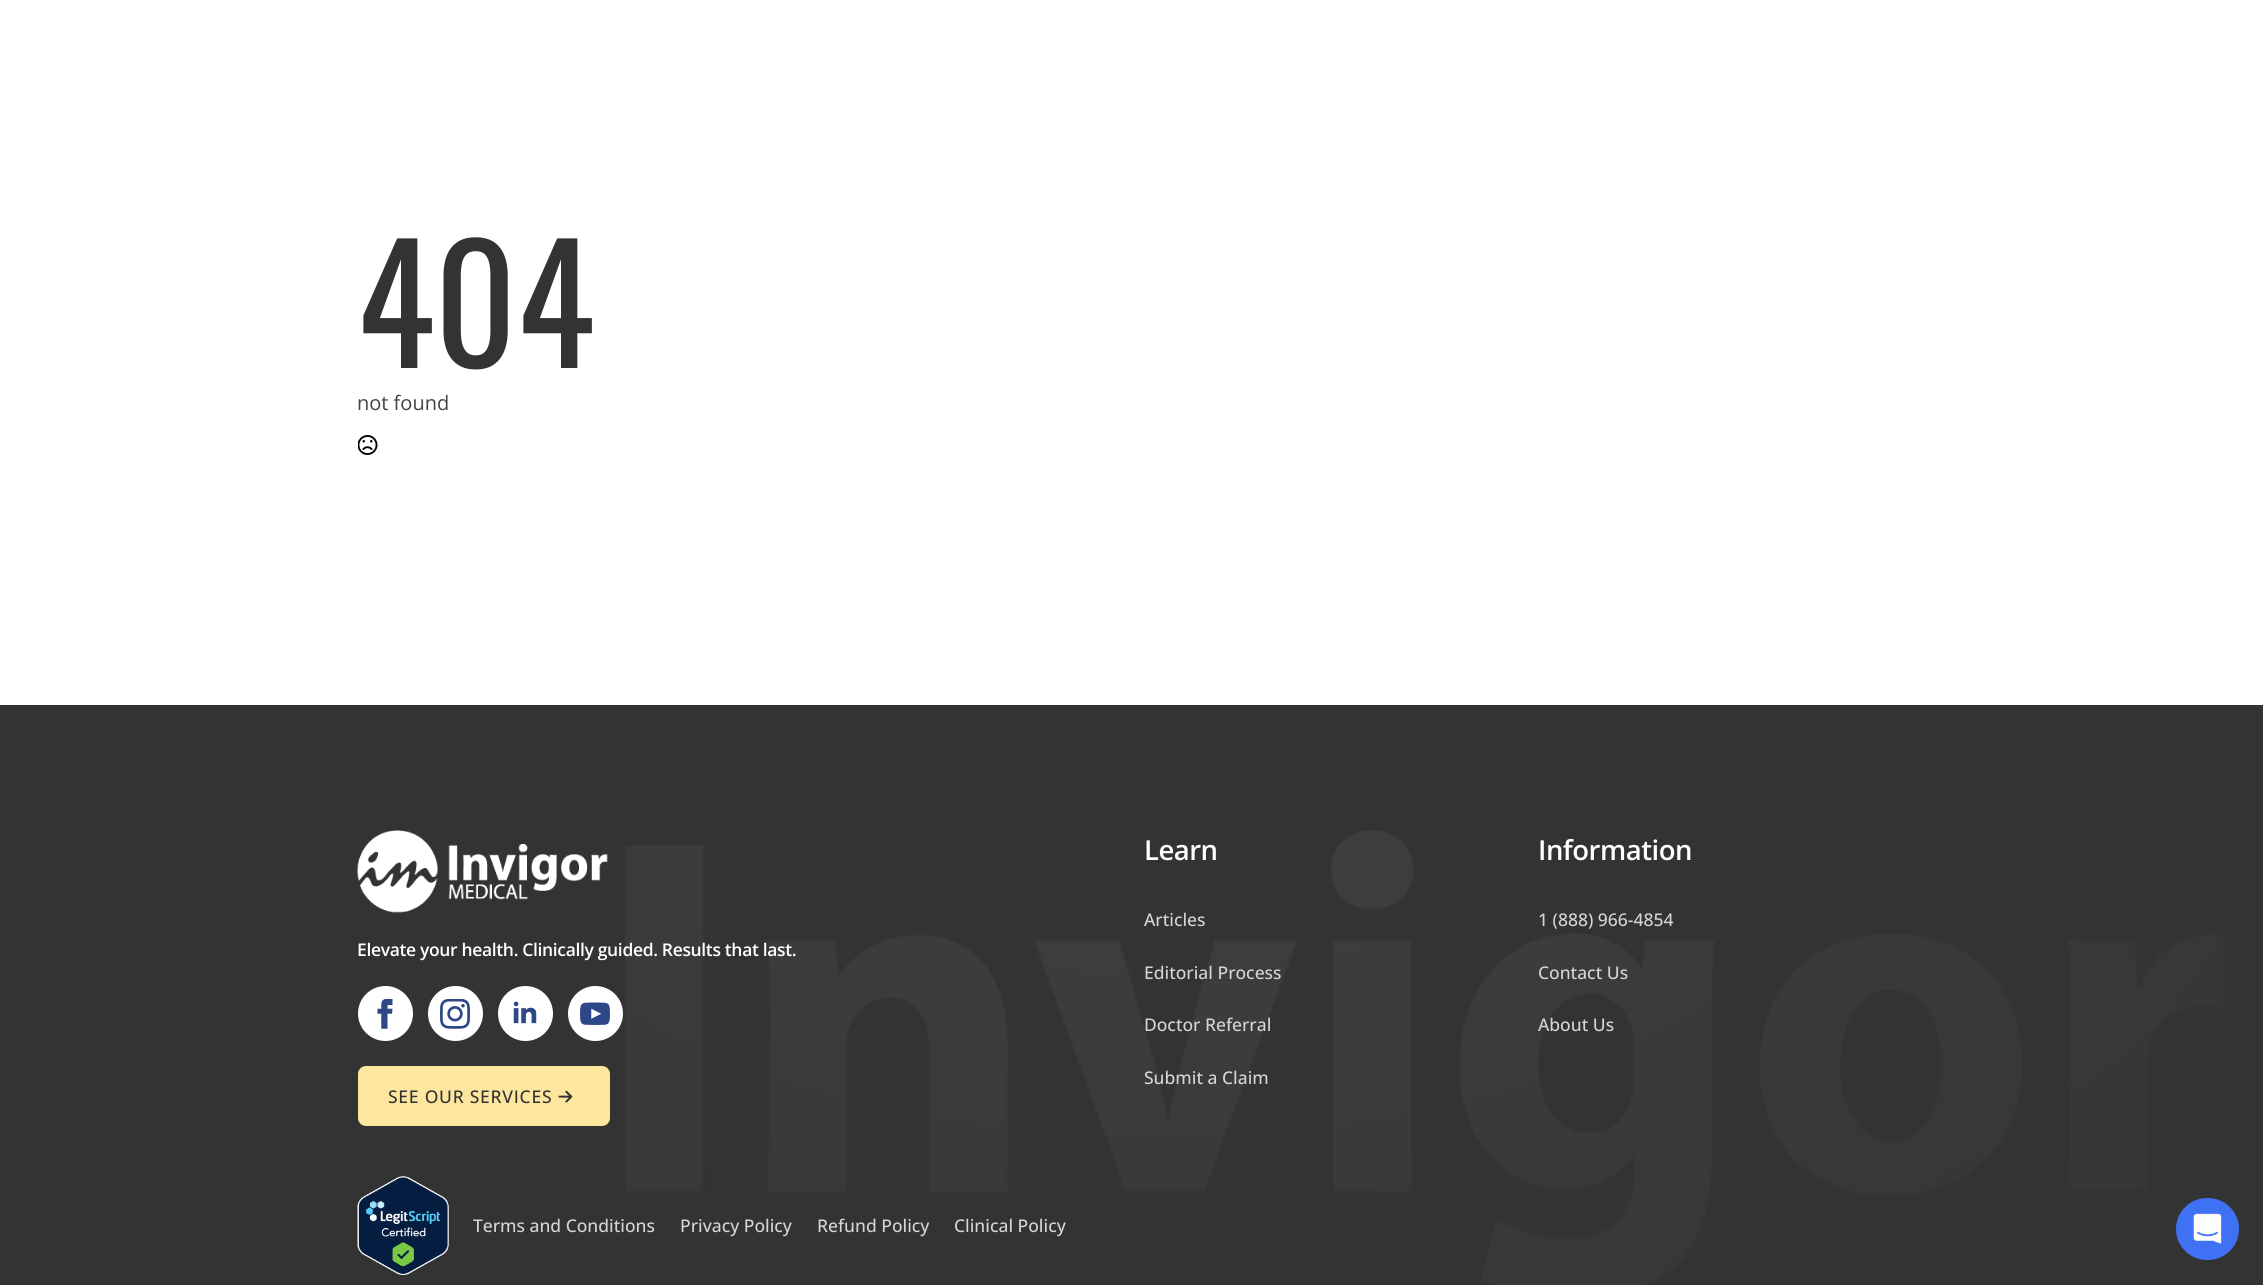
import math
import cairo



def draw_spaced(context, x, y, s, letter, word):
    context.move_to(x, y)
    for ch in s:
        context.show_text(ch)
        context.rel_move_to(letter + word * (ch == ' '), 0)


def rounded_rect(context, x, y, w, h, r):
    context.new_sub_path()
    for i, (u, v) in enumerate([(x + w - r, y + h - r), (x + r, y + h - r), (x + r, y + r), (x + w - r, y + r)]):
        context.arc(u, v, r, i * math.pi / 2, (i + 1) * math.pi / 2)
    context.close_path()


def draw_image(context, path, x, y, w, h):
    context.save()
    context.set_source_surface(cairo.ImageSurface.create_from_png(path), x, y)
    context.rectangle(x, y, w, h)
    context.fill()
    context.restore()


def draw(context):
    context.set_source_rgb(1, 1, 1)
    context.paint()
    draw_image(context, "images/1.png", 358, 435, 20, 20)
    context.set_source_rgb(51 / 255, 51 / 255, 51 / 255)
    context.rectangle(0, 705, 2263, 580)
    context.fill()
    draw_image(context, "images/2.png", 625, 830, 1599, 455)
    draw_image(context, "images/3.png", 357, 830, 251, 83)
    context.set_source_rgb(1, 1, 1)
    context.arc(385.5, 1013.5, 27.5, 0, 2 * math.pi)
    context.fill()
    draw_image(context, "images/4.png", 377, 999, 16, 30)
    context.arc(455.5, 1013.5, 27.5, 0, 2 * math.pi)
    context.fill()
    draw_image(context, "images/5.png", 440, 999, 30, 30)
    context.arc(525.5, 1013.5, 27.5, 0, 2 * math.pi)
    context.fill()
    draw_image(context, "images/6.png", 513, 1001, 24, 23)
    context.arc(595.5, 1013.5, 27.5, 0, 2 * math.pi)
    context.fill()
    draw_image(context, "images/7.png", 580, 1002, 30, 23)
    context.set_source_rgb(253 / 255, 231 / 255, 158 / 255)
    rounded_rect(context, 358, 1066, 252, 60, 8)
    context.fill()
    draw_image(context, "images/8.png", 558, 1090, 15, 13)
    draw_image(context, "images/9.png", 357, 1176, 92, 99)
    context.set_source_rgb(63 / 255, 113 / 255, 244 / 255)
    rounded_rect(context, 2176, 1198, 63, 62, 31)
    context.fill()
    draw_image(context, "images/10.png", 2193, 1213, 29, 31)
    context.select_font_face("Oswald")
    context.set_font_size(160)
    context.set_source_rgb(51 / 255, 51 / 255, 51 / 255)
    context.move_to(357, 368)
    context.show_text("404")
    context.select_font_face("Open Sans")
    context.set_font_size(20)
    context.set_source_rgb(68 / 255, 68 / 255, 68 / 255)
    context.move_to(357, 410)
    context.show_text("not found")
    context.select_font_face("Open Sans SemiBold")
    context.set_font_size(17.5)
    context.set_source_rgb(1, 1, 1)
    draw_spaced(context, 357, 956, "Elevate your health. Clinically guided. Results that last.", -0.35, 0)
    context.select_font_face("Open Sans Medium")
    context.set_source_rgb(51 / 255, 51 / 255, 51 / 255)
    draw_spaced(context, 388, 1103, "SEE OUR SERVICES", 0.75, 0)
    context.select_font_face("Open Sans SemiBold")
    context.set_font_size(27.5)
    context.set_source_rgb(1, 1, 1)
    draw_spaced(context, 1144, 860, "Learn", -0.5, 0)
    context.select_font_face("Open Sans Medium")
    context.set_font_size(17.5)
    context.set_source_rgb(214 / 255, 214 / 255, 214 / 255)
    context.move_to(1144, 926)
    context.show_text("Articles")
    context.move_to(1144, 979)
    context.show_text("Editorial Process")
    context.move_to(1144, 1031)
    context.show_text("Doctor Referral")
    context.move_to(1144, 1084)
    context.show_text("Submit a Claim")
    context.select_font_face("Open Sans SemiBold")
    context.set_font_size(27.5)
    context.set_source_rgb(1, 1, 1)
    draw_spaced(context, 1538, 860, "Information", -0.5, 0)
    context.select_font_face("Open Sans Medium")
    context.set_font_size(17.5)
    context.set_source_rgb(214 / 255, 214 / 255, 214 / 255)
    context.move_to(1538, 926)
    context.show_text("1 (888) 966-4854")
    context.move_to(1538, 979)
    context.show_text("Contact Us")
    context.move_to(1538, 1031)
    context.show_text("About Us")
    context.move_to(473, 1232)
    context.show_text("Terms and Conditions")
    context.move_to(680, 1232)
    context.show_text("Privacy Policy")
    context.move_to(817, 1232)
    context.show_text("Refund Policy")
    context.move_to(954, 1232)
    context.show_text("Clinical Policy")


surface = cairo.ImageSurface(cairo.Format.RGB24, 2263, 1285)
context = cairo.Context(surface)
options = cairo.FontOptions()
options.set_hint_metrics(cairo.HintMetrics.OFF)
options.set_hint_style(cairo.HintStyle.NONE)
context.set_font_options(options)
context.set_miter_limit(4)
draw(context)
surface.write_to_png("out.png")
